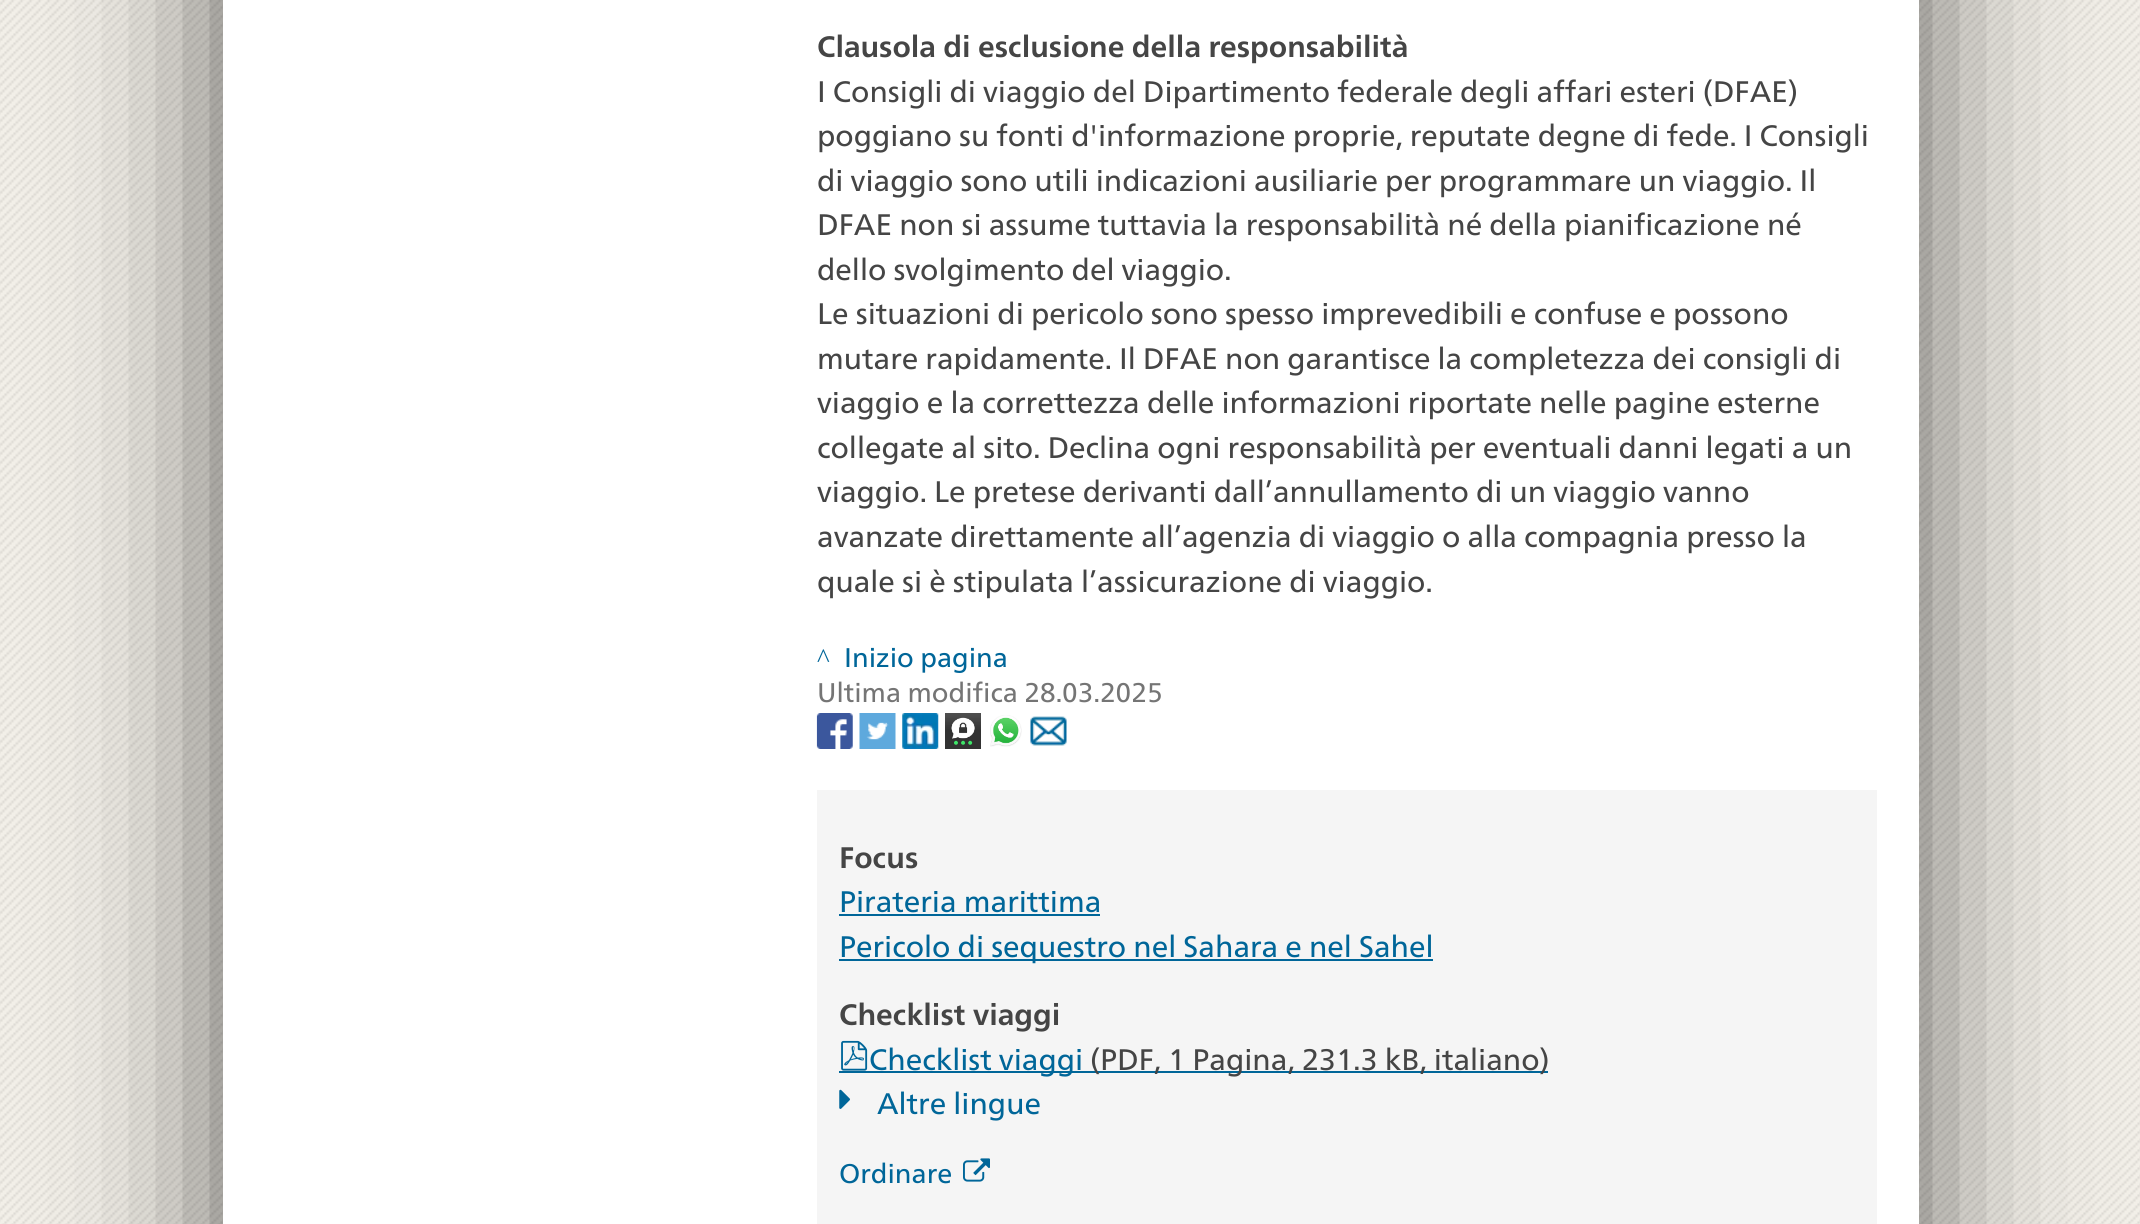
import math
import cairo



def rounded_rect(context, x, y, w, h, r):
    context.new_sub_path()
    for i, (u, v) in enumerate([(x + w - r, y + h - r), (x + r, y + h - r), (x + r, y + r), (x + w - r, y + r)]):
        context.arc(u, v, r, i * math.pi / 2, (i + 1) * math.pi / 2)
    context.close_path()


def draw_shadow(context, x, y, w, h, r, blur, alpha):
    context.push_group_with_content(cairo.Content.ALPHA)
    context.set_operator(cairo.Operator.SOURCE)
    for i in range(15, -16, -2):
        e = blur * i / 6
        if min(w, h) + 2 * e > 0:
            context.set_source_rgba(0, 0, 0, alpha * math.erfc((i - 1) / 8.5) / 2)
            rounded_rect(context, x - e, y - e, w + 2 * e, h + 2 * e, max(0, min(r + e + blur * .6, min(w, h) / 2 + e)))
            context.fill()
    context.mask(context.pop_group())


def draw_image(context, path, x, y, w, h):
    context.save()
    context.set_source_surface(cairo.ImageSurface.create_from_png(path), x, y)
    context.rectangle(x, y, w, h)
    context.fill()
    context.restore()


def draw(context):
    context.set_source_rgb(1, 1, 1)
    context.paint()
    draw_image(context, "images/1.png", 0, 0, 2140, 1224)
    context.set_source_rgb(0, 0, 0)
    draw_shadow(context, 223, -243, 1696, 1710, 0, 81, 0.6)
    context.set_source_rgb(1, 1, 1)
    context.rectangle(223, 0, 1696, 1224)
    context.fill()
    draw_image(context, "images/2.png", 816, 713, 37, 36)
    draw_image(context, "images/3.png", 859, 713, 37, 36)
    draw_image(context, "images/4.png", 902, 713, 37, 36)
    draw_image(context, "images/5.png", 945, 713, 36, 36)
    draw_image(context, "images/6.png", 990, 715, 32, 32)
    draw_image(context, "images/7.png", 1030, 716, 37, 30)
    context.set_source_rgb(245 / 255, 245 / 255, 245 / 255)
    context.rectangle(817, 790, 1060, 434)
    context.fill()
    context.set_source_rgb(0, 102 / 255, 153 / 255)
    context.rectangle(839, 914, 261, 2)
    context.fill()
    context.rectangle(839, 959, 594, 2)
    context.fill()
    draw_image(context, "images/8.png", 841, 1040, 27, 31)
    context.rectangle(839, 1071, 709, 2)
    context.fill()
    draw_image(context, "images/9.png", 839, 1089, 11, 20)
    draw_image(context, "images/10.png", 963, 1158, 27, 24)
    context.select_font_face("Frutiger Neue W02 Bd", cairo.FontSlant.NORMAL, cairo.FontWeight.BOLD)
    context.set_font_size(29.7)
    context.set_source_rgb(69 / 255, 69 / 255, 69 / 255)
    context.move_to(817, 57)
    context.show_text("Clausola di esclusione della responsabilità")
    context.select_font_face("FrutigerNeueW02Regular")
    context.move_to(817, 102)
    context.show_text("I Consigli di viaggio del Dipartimento federale degli affari esteri (DFAE)")
    context.move_to(817, 146)
    context.show_text("poggiano su fonti d'informazione proprie, reputate degne di fede. I Consigli")
    context.move_to(817, 191)
    context.show_text("di viaggio sono utili indicazioni ausiliarie per programmare un viaggio. Il")
    context.move_to(817, 235)
    context.show_text("DFAE non si assume tuttavia la responsabilità né della pianificazione né")
    context.move_to(817, 280)
    context.show_text("dello svolgimento del viaggio.")
    context.move_to(817, 324)
    context.show_text("Le situazioni di pericolo sono spesso imprevedibili e confuse e possono")
    context.move_to(817, 369)
    context.show_text("mutare rapidamente. Il DFAE non garantisce la completezza dei consigli di")
    context.move_to(817, 413)
    context.show_text("viaggio e la correttezza delle informazioni riportate nelle pagine esterne")
    context.move_to(817, 458)
    context.show_text("collegate al sito. Declina ogni responsabilità per eventuali danni legati a un")
    context.move_to(817, 502)
    context.show_text("viaggio. Le pretese derivanti dall’annullamento di un viaggio vanno")
    context.move_to(817, 547)
    context.show_text("avanzate direttamente all’agenzia di viaggio o alla compagnia presso la")
    context.move_to(817, 592)
    context.show_text("quale si è stipulata l’assicurazione di viaggio.")
    context.select_font_face("Liberation Serif")
    context.set_font_size(27)
    context.set_source_rgb(0, 102 / 255, 153 / 255)
    context.move_to(817, 667)
    context.show_text("^")
    context.select_font_face("FrutigerNeueW02Regular")
    context.move_to(844, 667)
    context.show_text("Inizio pagina")
    context.set_source_rgb(117 / 255, 117 / 255, 117 / 255)
    context.move_to(817, 702)
    context.show_text("Ultima modifica 28.03.2025")
    context.select_font_face("Frutiger Neue W02 Bd", cairo.FontSlant.NORMAL, cairo.FontWeight.BOLD)
    context.set_font_size(29.7)
    context.set_source_rgb(69 / 255, 69 / 255, 69 / 255)
    context.move_to(839, 868)
    context.show_text("Focus")
    context.select_font_face("FrutigerNeueW02Regular")
    context.set_source_rgb(0, 102 / 255, 153 / 255)
    context.move_to(839, 912)
    context.show_text("Pirateria marittima")
    context.move_to(839, 957)
    context.show_text("Pericolo di sequestro nel Sahara e nel Sahel")
    context.select_font_face("Frutiger Neue W02 Bd", cairo.FontSlant.NORMAL, cairo.FontWeight.BOLD)
    context.set_source_rgb(69 / 255, 69 / 255, 69 / 255)
    context.move_to(839, 1025)
    context.show_text("Checklist viaggi")
    context.select_font_face("FrutigerNeueW02Regular")
    context.set_source_rgb(0, 102 / 255, 153 / 255)
    context.move_to(869, 1070)
    context.show_text("Checklist viaggi")
    context.set_source_rgb(69 / 255, 69 / 255, 69 / 255)
    context.move_to(1090, 1070)
    context.show_text("(PDF, 1 Pagina, 231.3 kB, italiano)")
    context.set_source_rgb(0, 102 / 255, 153 / 255)
    context.move_to(877, 1114)
    context.show_text("Altre lingue")
    context.set_font_size(27)
    context.move_to(839, 1183)
    context.show_text("Ordinare")


surface = cairo.ImageSurface(cairo.Format.RGB24, 2140, 1224)
context = cairo.Context(surface)
options = cairo.FontOptions()
options.set_hint_metrics(cairo.HintMetrics.OFF)
options.set_hint_style(cairo.HintStyle.NONE)
context.set_font_options(options)
context.set_miter_limit(4)
draw(context)
surface.write_to_png("out.png")
